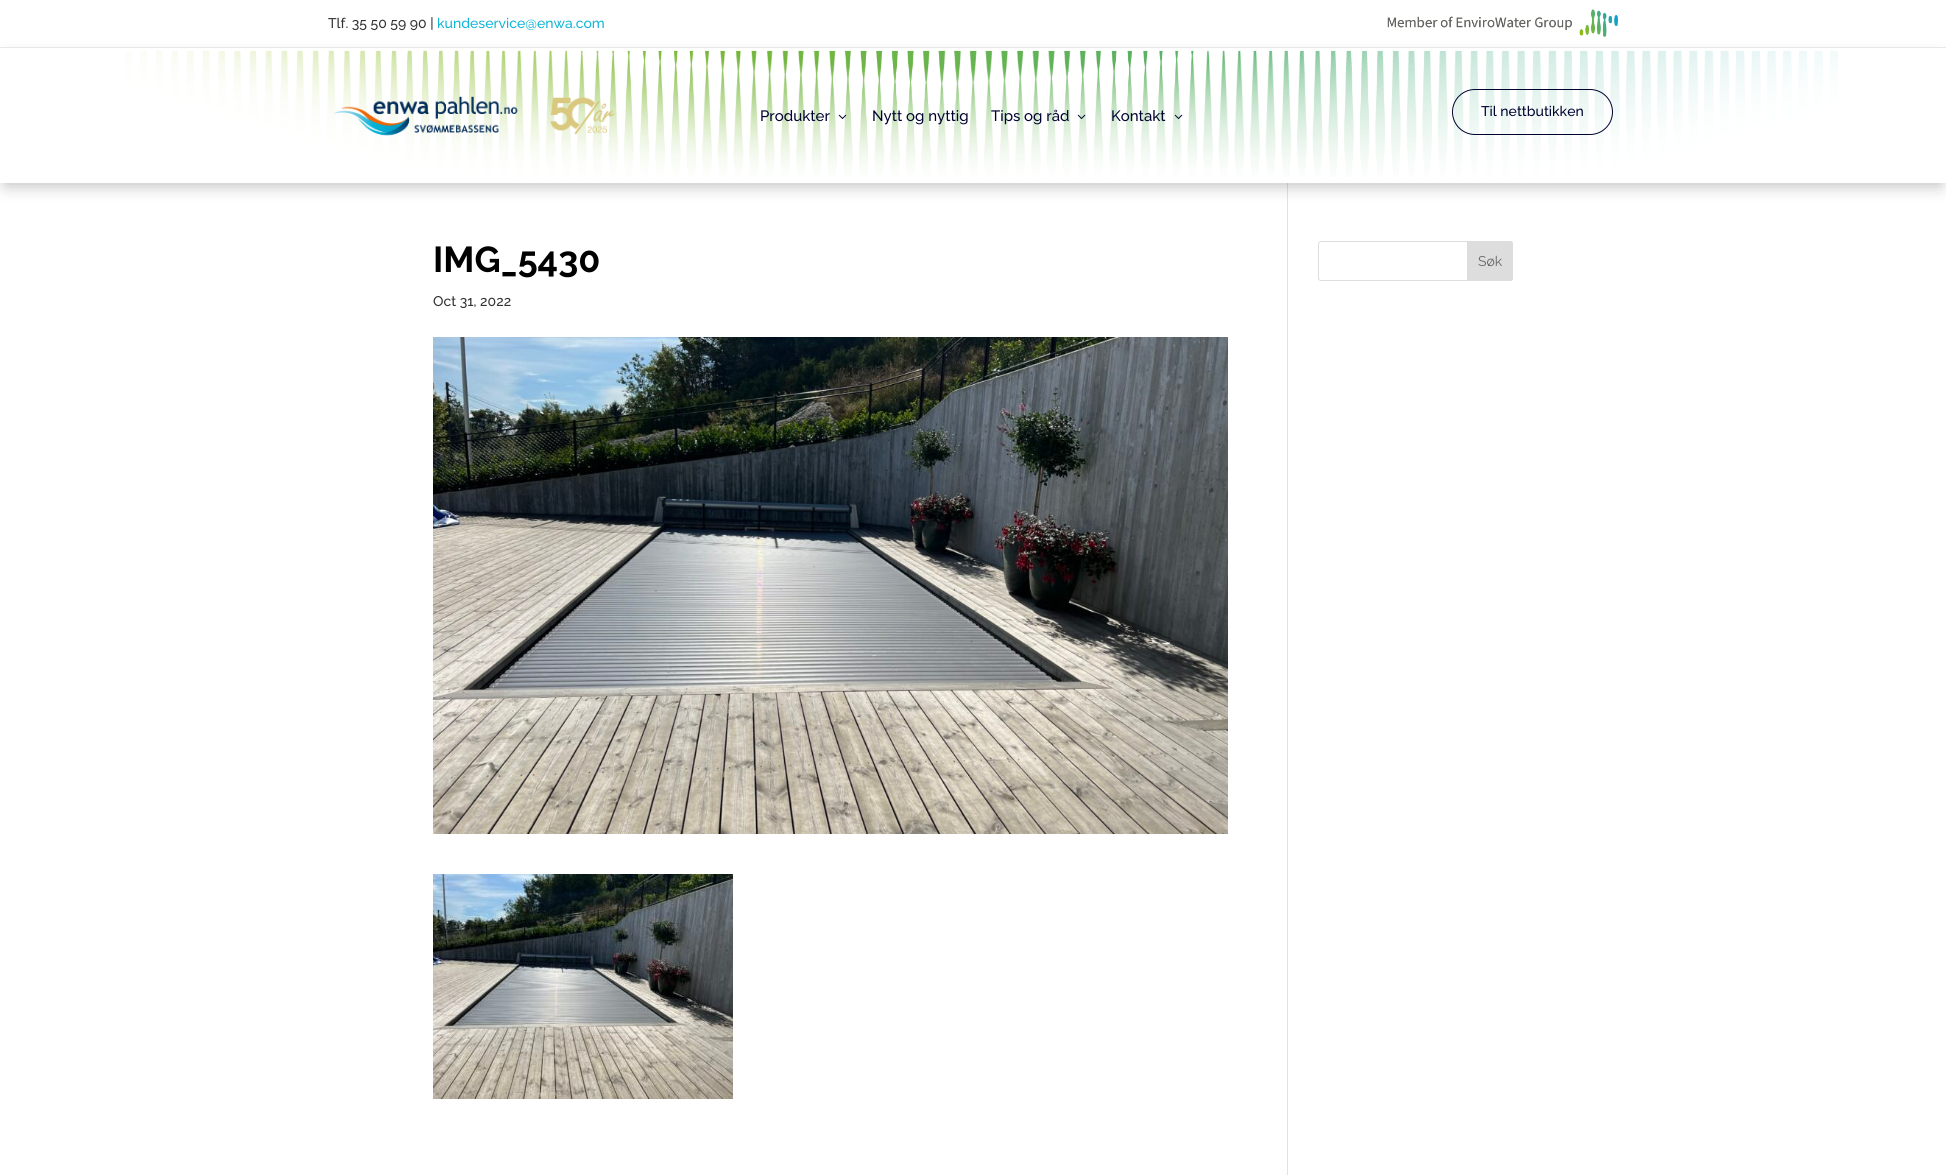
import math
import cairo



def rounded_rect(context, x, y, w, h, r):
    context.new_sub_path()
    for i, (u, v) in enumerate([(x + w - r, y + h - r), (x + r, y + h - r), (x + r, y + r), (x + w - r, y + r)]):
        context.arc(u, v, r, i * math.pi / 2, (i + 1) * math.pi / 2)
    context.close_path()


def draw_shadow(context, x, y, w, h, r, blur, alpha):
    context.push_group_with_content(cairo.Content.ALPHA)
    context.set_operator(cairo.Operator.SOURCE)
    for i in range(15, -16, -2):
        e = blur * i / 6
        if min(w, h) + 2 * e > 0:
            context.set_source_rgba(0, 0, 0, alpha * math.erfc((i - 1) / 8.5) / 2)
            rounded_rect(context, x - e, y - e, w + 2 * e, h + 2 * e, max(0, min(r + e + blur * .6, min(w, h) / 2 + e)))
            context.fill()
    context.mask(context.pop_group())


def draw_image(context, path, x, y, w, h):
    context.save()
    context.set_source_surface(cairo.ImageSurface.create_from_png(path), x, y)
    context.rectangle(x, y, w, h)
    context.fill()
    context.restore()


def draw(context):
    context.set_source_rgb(1, 1, 1)
    context.paint()
    draw_image(context, "images/1.png", 1387, 9, 231, 28)
    context.set_source_rgb(226 / 255, 226 / 255, 226 / 255)
    context.rectangle(1287, 183, 1, 992)
    context.fill()
    context.set_source_rgb(0, 0, 0)
    draw_shadow(context, 6, 60, 1934, 124, 0, 9, 0.3)
    context.set_source_rgb(1, 1, 1)
    context.rectangle(0, 48, 1946, 135)
    context.fill()
    draw_image(context, "images/2.png", 125, 50, 1713, 127)
    context.set_source_rgb(232 / 255, 232 / 255, 232 / 255)
    context.rectangle(0, 47, 1946, 1)
    context.fill()
    draw_image(context, "images/3.png", 334, 96, 281, 40)
    draw_image(context, "images/4.png", 838, 114, 9, 5)
    draw_image(context, "images/5.png", 1077, 114, 9, 5)
    draw_image(context, "images/6.png", 1174, 114, 9, 5)
    rounded_rect(context, 1452.5, 89.5, 160, 45, 22.5)
    context.set_source_rgb(0, 3 / 255, 48 / 255)
    context.set_line_width(1)
    context.stroke()
    draw_image(context, "images/7.png", 433, 337, 795, 497)
    draw_image(context, "images/8.png", 433, 874, 300, 225)
    rounded_rect(context, 1318.5, 241.5, 194, 39, 2.5)
    context.set_source_rgb(221 / 255, 221 / 255, 221 / 255)
    context.stroke()
    context.new_path()
    context.move_to(1467.5, 241.5)
    context.line_to(1510, 241.5)
    context.curve_to(1511.5, 241.5, 1512.5, 242.5, 1512.5, 244)
    context.line_to(1512.5, 278)
    context.curve_to(1512.5, 279.5, 1511.5, 280.5, 1510, 280.5)
    context.line_to(1467.5, 280.5)
    context.close_path()
    context.fill_preserve()
    context.stroke()
    context.select_font_face("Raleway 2 Thin")
    context.set_font_size(14)
    context.set_source_rgb(51 / 255, 51 / 255, 51 / 255)
    context.move_to(328, 28)
    context.show_text("Tlf. 35 50 59 90 |")
    context.set_source_rgb(17 / 255, 181 / 255, 214 / 255)
    context.move_to(437, 28)
    context.show_text("kundeservice@enwa.com")
    context.set_font_size(15)
    context.set_source_rgb(0, 3 / 255, 48 / 255)
    context.move_to(760, 121)
    context.show_text("Produkter")
    context.move_to(872, 121)
    context.show_text("Nytt og nyttig")
    context.move_to(991, 121)
    context.show_text("Tips og råd")
    context.move_to(1111, 121)
    context.show_text("Kontakt")
    context.set_font_size(14)
    context.move_to(1481, 116)
    context.show_text("Til nettbutikken")
    context.select_font_face("Raleway Thin")
    context.set_font_size(36)
    context.set_source_rgb(0, 0, 0)
    context.move_to(433, 272)
    context.show_text("IMG_5430")
    context.select_font_face("Raleway 2 Thin")
    context.set_font_size(14)
    context.set_source_rgb(51 / 255, 51 / 255, 51 / 255)
    context.move_to(433, 306)
    context.show_text("Oct 31, 2022")
    context.select_font_face("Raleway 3 Thin")
    context.set_source_rgb(102 / 255, 102 / 255, 102 / 255)
    context.move_to(1478, 266)
    context.show_text("Søk")


surface = cairo.ImageSurface(cairo.Format.RGB24, 1946, 1175)
context = cairo.Context(surface)
options = cairo.FontOptions()
options.set_hint_metrics(cairo.HintMetrics.OFF)
options.set_hint_style(cairo.HintStyle.NONE)
context.set_font_options(options)
context.set_miter_limit(4)
draw(context)
surface.write_to_png("out.png")
